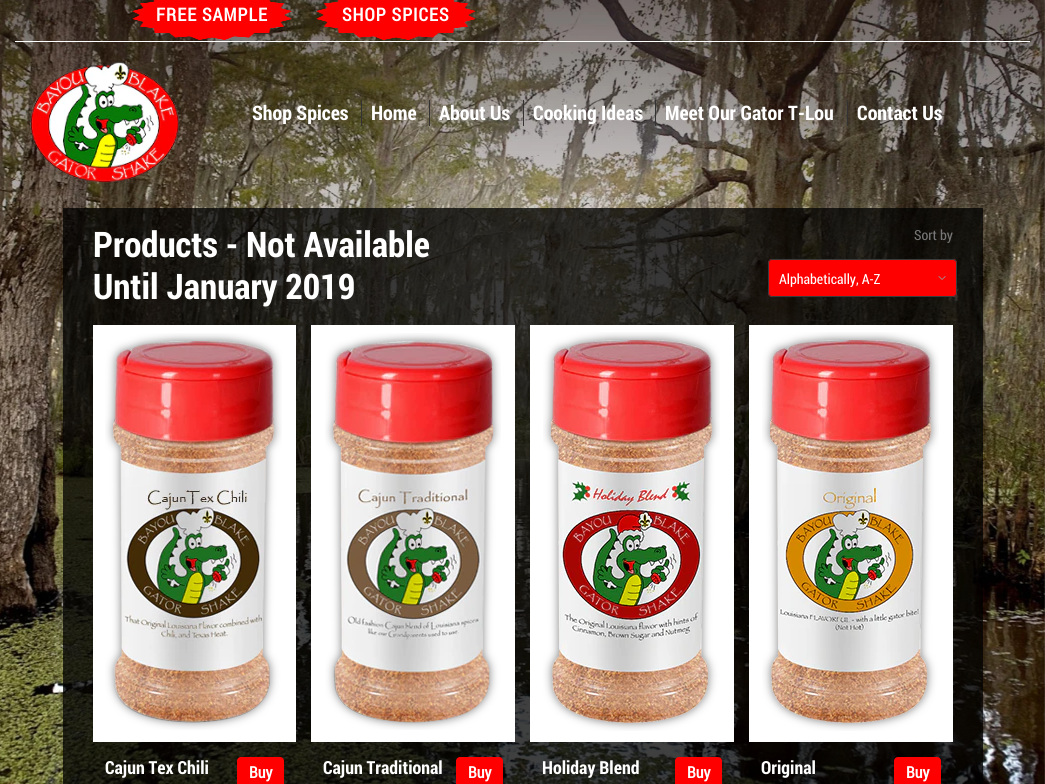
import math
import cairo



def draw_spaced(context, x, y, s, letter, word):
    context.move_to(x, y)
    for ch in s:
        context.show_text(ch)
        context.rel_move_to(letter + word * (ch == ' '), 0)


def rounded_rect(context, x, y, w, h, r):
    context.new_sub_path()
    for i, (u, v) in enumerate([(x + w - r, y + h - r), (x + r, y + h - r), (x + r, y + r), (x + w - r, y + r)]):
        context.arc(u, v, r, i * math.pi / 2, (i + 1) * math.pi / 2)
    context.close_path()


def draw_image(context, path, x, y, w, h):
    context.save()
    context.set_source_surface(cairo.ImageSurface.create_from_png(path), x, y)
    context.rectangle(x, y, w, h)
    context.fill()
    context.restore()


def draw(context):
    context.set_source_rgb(1, 1, 1)
    context.paint()
    draw_image(context, "images/1.png", 0, 0, 1045, 784)
    context.set_source_rgb(1, 1, 1)
    context.rectangle(15, 41, 1015, 1)
    context.fill()
    draw_image(context, "images/2.png", 132, 0, 160, 40)
    draw_image(context, "images/3.png", 316, 0, 160, 40)
    draw_image(context, "images/4.png", 30, 62, 149, 121)
    context.set_source_rgb(51 / 255, 51 / 255, 51 / 255)
    context.rectangle(361, 100, 1, 26)
    context.fill()
    context.rectangle(429, 100, 1, 26)
    context.fill()
    context.rectangle(523, 100, 1, 26)
    context.fill()
    context.rectangle(655, 100, 1, 26)
    context.fill()
    context.rectangle(847, 100, 1, 26)
    context.fill()
    context.set_source_rgba(0, 0, 0, 0.75)
    context.rectangle(63, 208, 920, 576)
    context.fill()
    context.set_source_rgb(254 / 255, 0, 0)
    rounded_rect(context, 768, 259, 189, 38, 4)
    context.fill()
    draw_image(context, "images/5.png", 938, 276, 8, 4)
    rounded_rect(context, 768.5, 259.5, 188, 37, 3.5)
    context.set_source_rgb(59 / 255, 59 / 255, 59 / 255)
    context.set_line_width(1)
    context.stroke()
    context.set_source_rgb(1, 1, 1)
    context.rectangle(93, 325, 203, 417)
    context.fill()
    draw_image(context, "images/6.png", 105, 333, 177, 397)
    context.set_source_rgb(254 / 255, 0, 0)
    rounded_rect(context, 237, 757, 47, 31, 4)
    context.fill()
    context.set_source_rgb(1, 1, 1)
    context.rectangle(311, 325, 204, 417)
    context.fill()
    draw_image(context, "images/7.png", 325, 333, 176, 397)
    context.set_source_rgb(254 / 255, 0, 0)
    rounded_rect(context, 456, 757, 47, 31, 4)
    context.fill()
    context.set_source_rgb(1, 1, 1)
    context.rectangle(530, 325, 204, 417)
    context.fill()
    draw_image(context, "images/8.png", 543, 332, 177, 399)
    context.set_source_rgb(254 / 255, 0, 0)
    rounded_rect(context, 675, 757, 47, 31, 4)
    context.fill()
    context.set_source_rgb(1, 1, 1)
    context.rectangle(749, 325, 204, 417)
    context.fill()
    draw_image(context, "images/9.png", 762, 332, 177, 399)
    context.set_source_rgb(254 / 255, 0, 0)
    rounded_rect(context, 894, 757, 47, 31, 4)
    context.fill()
    context.select_font_face("Roboto Condensed", cairo.FontSlant.NORMAL, cairo.FontWeight.BOLD)
    context.set_font_size(18)
    context.set_source_rgb(1, 1, 1)
    draw_spaced(context, 156, 21, "FREE SAMPLE", 1, 0)
    draw_spaced(context, 342, 21, "SHOP SPICES", 1, 0)
    context.select_font_face("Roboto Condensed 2", cairo.FontSlant.NORMAL, cairo.FontWeight.BOLD)
    context.set_font_size(20)
    context.move_to(252, 120)
    context.show_text("Shop Spices")
    context.move_to(371, 120)
    context.show_text("Home")
    context.move_to(439, 120)
    context.show_text("About Us")
    context.move_to(533, 120)
    context.show_text("Cooking Ideas")
    context.move_to(665, 120)
    context.show_text("Meet Our Gator T-Lou")
    context.move_to(857, 120)
    context.show_text("Contact Us")
    context.set_font_size(35.25)
    context.move_to(93, 257)
    context.show_text("Products - Not Available")
    context.move_to(93, 299)
    context.show_text("Until January 2019")
    context.select_font_face("Roboto Condensed")
    context.set_font_size(14)
    context.set_source_rgb(119 / 255, 119 / 255, 119 / 255)
    context.move_to(914, 240)
    context.show_text("Sort by")
    context.set_source_rgb(1, 1, 1)
    context.move_to(779, 284)
    context.show_text("Alphabetically, A-Z")
    context.select_font_face("Roboto Condensed 2", cairo.FontSlant.NORMAL, cairo.FontWeight.BOLD)
    context.set_font_size(18)
    context.move_to(105, 774)
    context.show_text("Cajun Tex Chili")
    context.select_font_face("Roboto Condensed", cairo.FontSlant.NORMAL, cairo.FontWeight.BOLD)
    context.set_font_size(16)
    context.move_to(249, 778)
    context.show_text("Buy")
    context.select_font_face("Roboto Condensed 2", cairo.FontSlant.NORMAL, cairo.FontWeight.BOLD)
    context.set_font_size(18)
    context.move_to(323, 774)
    context.show_text("Cajun Traditional")
    context.select_font_face("Roboto Condensed", cairo.FontSlant.NORMAL, cairo.FontWeight.BOLD)
    context.set_font_size(16)
    context.move_to(468, 778)
    context.show_text("Buy")
    context.select_font_face("Roboto Condensed 2", cairo.FontSlant.NORMAL, cairo.FontWeight.BOLD)
    context.set_font_size(18)
    context.move_to(542, 774)
    context.show_text("Holiday Blend")
    context.select_font_face("Roboto Condensed", cairo.FontSlant.NORMAL, cairo.FontWeight.BOLD)
    context.set_font_size(16)
    context.move_to(687, 778)
    context.show_text("Buy")
    context.select_font_face("Roboto Condensed 2", cairo.FontSlant.NORMAL, cairo.FontWeight.BOLD)
    context.set_font_size(18)
    context.move_to(761, 774)
    context.show_text("Original")
    context.select_font_face("Roboto Condensed", cairo.FontSlant.NORMAL, cairo.FontWeight.BOLD)
    context.set_font_size(16)
    context.move_to(906, 778)
    context.show_text("Buy")


surface = cairo.ImageSurface(cairo.Format.RGB24, 1045, 784)
context = cairo.Context(surface)
options = cairo.FontOptions()
options.set_hint_metrics(cairo.HintMetrics.OFF)
options.set_hint_style(cairo.HintStyle.NONE)
context.set_font_options(options)
context.set_miter_limit(4)
draw(context)
surface.write_to_png("out.png")
